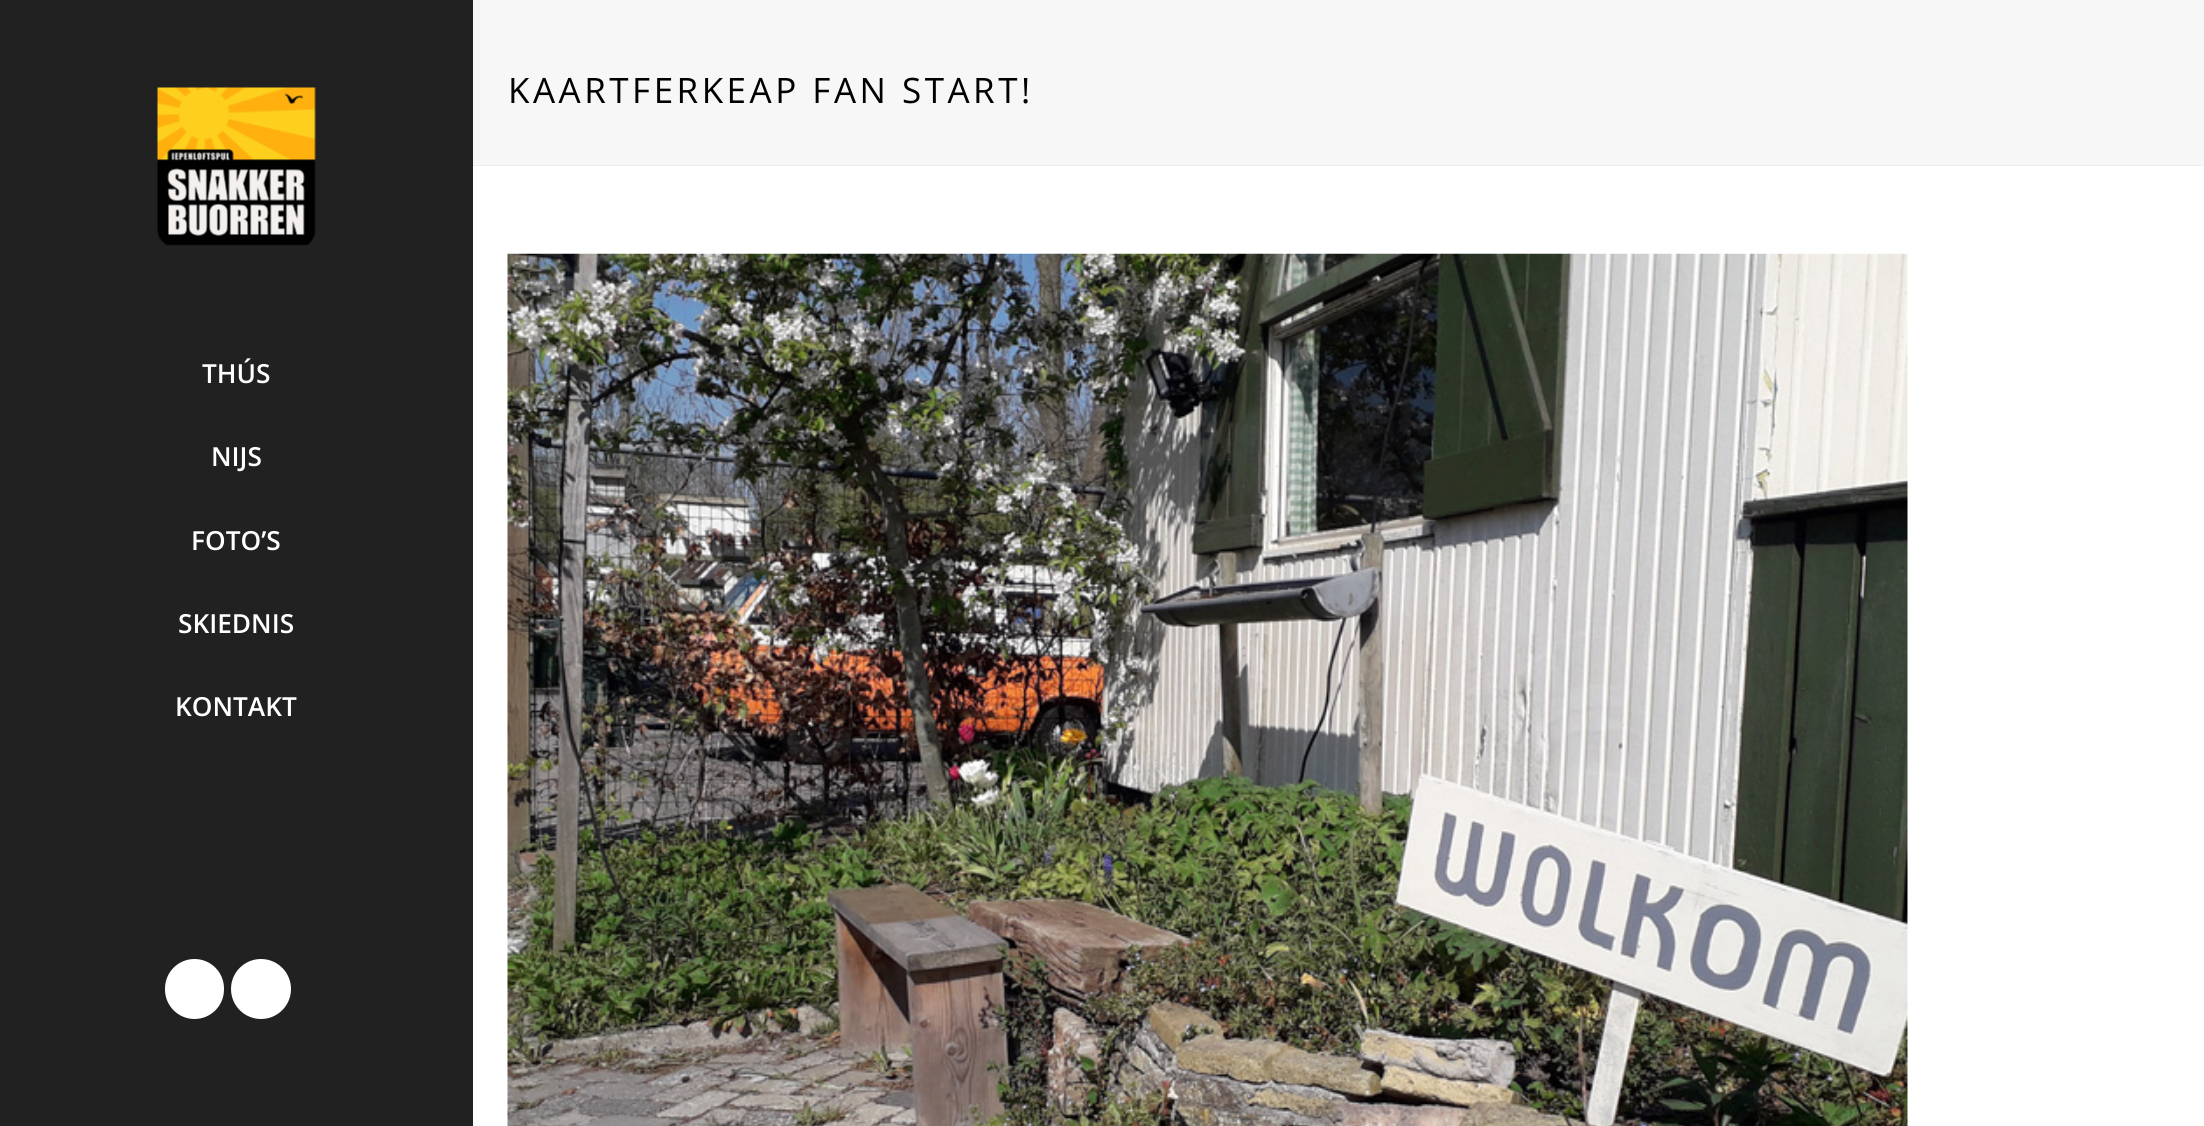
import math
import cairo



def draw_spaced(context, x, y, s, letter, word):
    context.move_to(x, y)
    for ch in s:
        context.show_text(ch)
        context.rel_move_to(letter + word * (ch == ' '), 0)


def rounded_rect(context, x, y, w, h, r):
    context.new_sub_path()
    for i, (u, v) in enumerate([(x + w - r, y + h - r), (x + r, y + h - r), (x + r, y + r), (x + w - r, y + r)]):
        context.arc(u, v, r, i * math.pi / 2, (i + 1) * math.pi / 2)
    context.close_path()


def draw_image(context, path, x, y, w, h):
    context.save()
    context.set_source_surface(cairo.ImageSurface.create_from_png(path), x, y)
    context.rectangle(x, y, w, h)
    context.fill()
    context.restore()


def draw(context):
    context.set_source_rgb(247 / 255, 247 / 255, 247 / 255)
    context.paint()
    context.set_source_rgb(237 / 255, 237 / 255, 237 / 255)
    context.rectangle(473, 165, 1731, 1)
    context.fill()
    context.set_source_rgb(33 / 255, 33 / 255, 33 / 255)
    context.rectangle(0, 0, 473, 1126)
    context.fill()
    draw_image(context, "images/1.png", 157, 87, 159, 159)
    context.set_source_rgb(1, 1, 1)
    rounded_rect(context, 166, 960, 57, 58, 28.5)
    context.fill_preserve()
    context.stroke()
    context.arc(261, 989, 29, 0, 2 * math.pi)
    context.fill_preserve()
    context.stroke()
    context.rectangle(473, 166, 1731, 960)
    context.fill()
    draw_image(context, "images/2.png", 507, 253, 1401, 873)
    context.select_font_face("Open Sans")
    context.set_font_size(35)
    context.set_source_rgb(0, 0, 0)
    draw_spaced(context, 508, 103, "KAARTFERKEAP FAN START!", 3.5, 0)
    context.select_font_face("Open Sans SemiBold")
    context.set_font_size(26.25)
    context.set_source_rgb(1, 1, 1)
    context.move_to(202, 383)
    context.show_text("THÚS")
    context.move_to(211, 466)
    context.show_text("NIJS")
    context.move_to(191, 550)
    context.show_text("FOTO’S")
    context.move_to(178, 633)
    context.show_text("SKIEDNIS")
    context.move_to(175, 716)
    context.show_text("KONTAKT")


surface = cairo.ImageSurface(cairo.Format.RGB24, 2204, 1126)
context = cairo.Context(surface)
options = cairo.FontOptions()
options.set_hint_metrics(cairo.HintMetrics.OFF)
options.set_hint_style(cairo.HintStyle.NONE)
context.set_font_options(options)
context.set_miter_limit(4)
draw(context)
surface.write_to_png("out.png")
